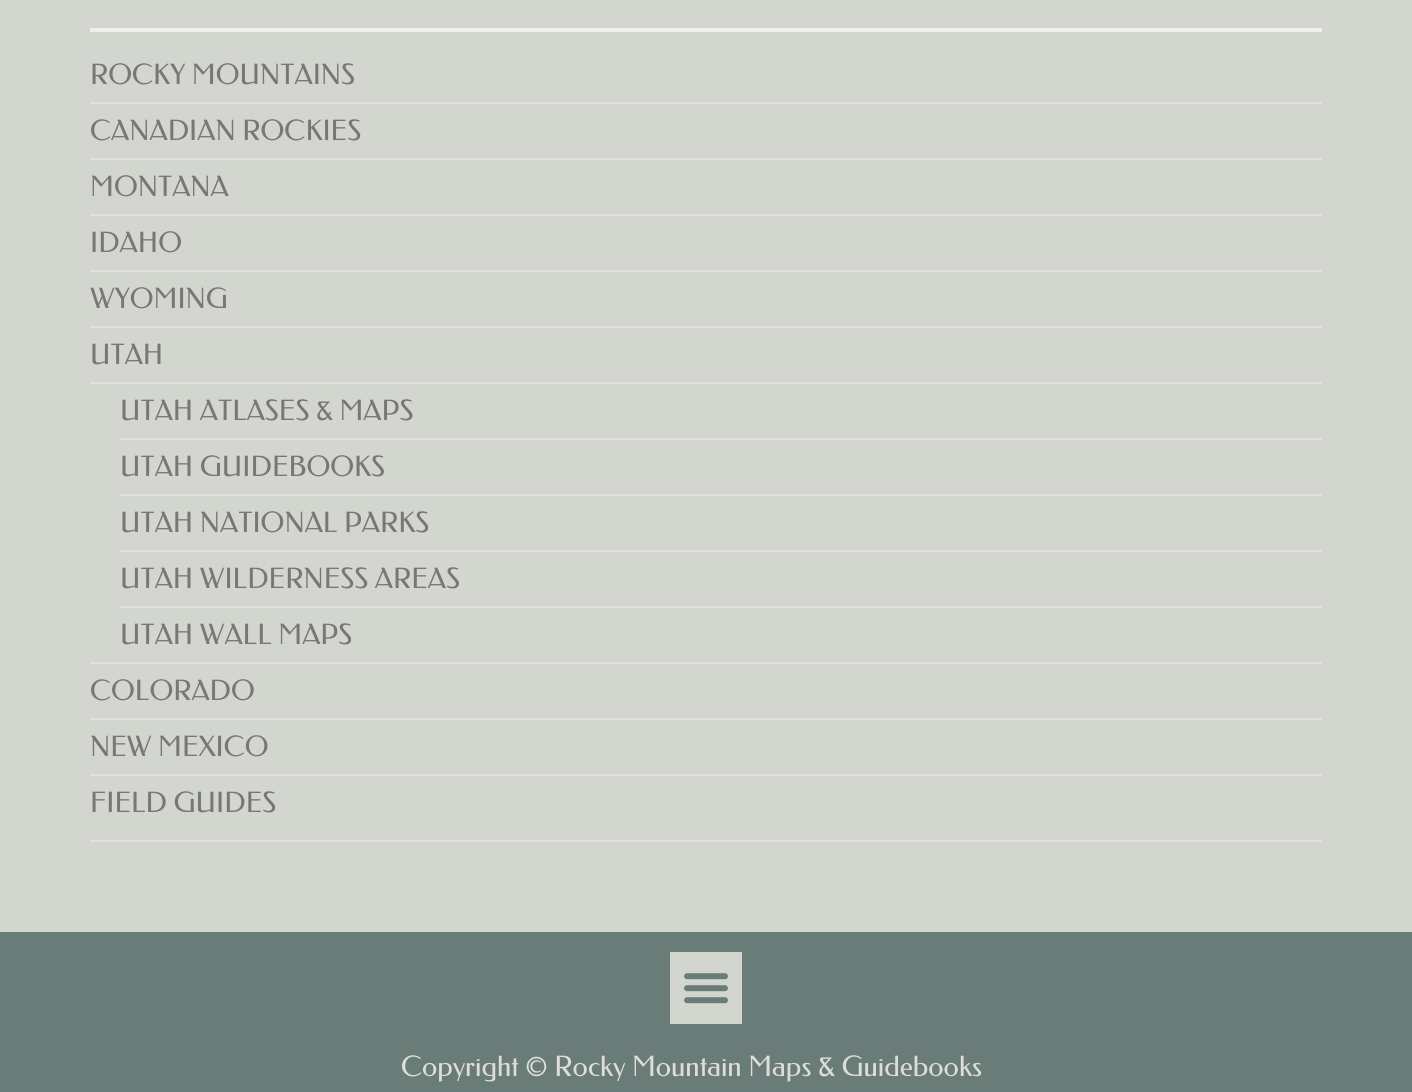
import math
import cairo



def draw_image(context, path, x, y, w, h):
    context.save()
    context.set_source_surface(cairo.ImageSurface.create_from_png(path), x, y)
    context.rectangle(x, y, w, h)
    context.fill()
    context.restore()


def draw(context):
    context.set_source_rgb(210 / 255, 214 / 255, 207 / 255)
    context.paint()
    context.set_source_rgb(224 / 255, 224 / 255, 224 / 255)
    context.rectangle(90, 840, 1232, 2)
    context.fill()
    context.set_source_rgb(238 / 255, 238 / 255, 238 / 255)
    context.rectangle(90, 28, 1232, 4)
    context.fill()
    context.set_source_rgb(224 / 255, 224 / 255, 224 / 255)
    context.rectangle(90, 102, 1232, 2)
    context.fill()
    context.rectangle(90, 158, 1232, 2)
    context.fill()
    context.rectangle(90, 214, 1232, 2)
    context.fill()
    context.rectangle(90, 270, 1232, 2)
    context.fill()
    context.rectangle(90, 326, 1232, 2)
    context.fill()
    context.rectangle(90, 662, 1232, 2)
    context.fill()
    context.rectangle(90, 382, 1232, 2)
    context.fill()
    context.rectangle(120, 438, 1202, 2)
    context.fill()
    context.rectangle(120, 494, 1202, 2)
    context.fill()
    context.rectangle(120, 550, 1202, 2)
    context.fill()
    context.rectangle(120, 606, 1202, 2)
    context.fill()
    context.rectangle(90, 718, 1232, 2)
    context.fill()
    context.rectangle(90, 774, 1232, 2)
    context.fill()
    context.set_source_rgb(106 / 255, 124 / 255, 120 / 255)
    context.rectangle(0, 932, 1412, 160)
    context.fill()
    context.set_source_rgb(210 / 255, 214 / 255, 207 / 255)
    context.rectangle(670, 952, 72, 72)
    context.fill()
    draw_image(context, "images/1.png", 684, 973, 44, 31)
    context.select_font_face("Federo")
    context.set_font_size(28)
    context.set_source_rgb(119 / 255, 119 / 255, 119 / 255)
    context.move_to(90, 84)
    context.show_text("ROCKY MOUNTAINS")
    context.move_to(90, 140)
    context.show_text("CANADIAN ROCKIES")
    context.move_to(90, 196)
    context.show_text("MONTANA")
    context.move_to(90, 252)
    context.show_text("IDAHO")
    context.move_to(90, 308)
    context.show_text("WYOMING")
    context.move_to(90, 364)
    context.show_text("UTAH")
    context.move_to(120, 420)
    context.show_text("UTAH ATLASES & MAPS")
    context.move_to(120, 476)
    context.show_text("UTAH GUIDEBOOKS")
    context.move_to(120, 532)
    context.show_text("UTAH NATIONAL PARKS")
    context.move_to(120, 588)
    context.show_text("UTAH WILDERNESS AREAS")
    context.move_to(120, 644)
    context.show_text("UTAH WALL MAPS")
    context.move_to(90, 700)
    context.show_text("COLORADO")
    context.move_to(90, 756)
    context.show_text("NEW MEXICO")
    context.move_to(90, 812)
    context.show_text("FIELD GUIDES")
    context.set_source_rgb(221 / 255, 221 / 255, 221 / 255)
    context.move_to(401, 1076)
    context.show_text("Copyright © Rocky Mountain Maps & Guidebooks")


surface = cairo.ImageSurface(cairo.Format.RGB24, 1412, 1092)
context = cairo.Context(surface)
options = cairo.FontOptions()
options.set_hint_metrics(cairo.HintMetrics.OFF)
options.set_hint_style(cairo.HintStyle.NONE)
context.set_font_options(options)
context.set_miter_limit(4)
draw(context)
surface.write_to_png("out.png")
